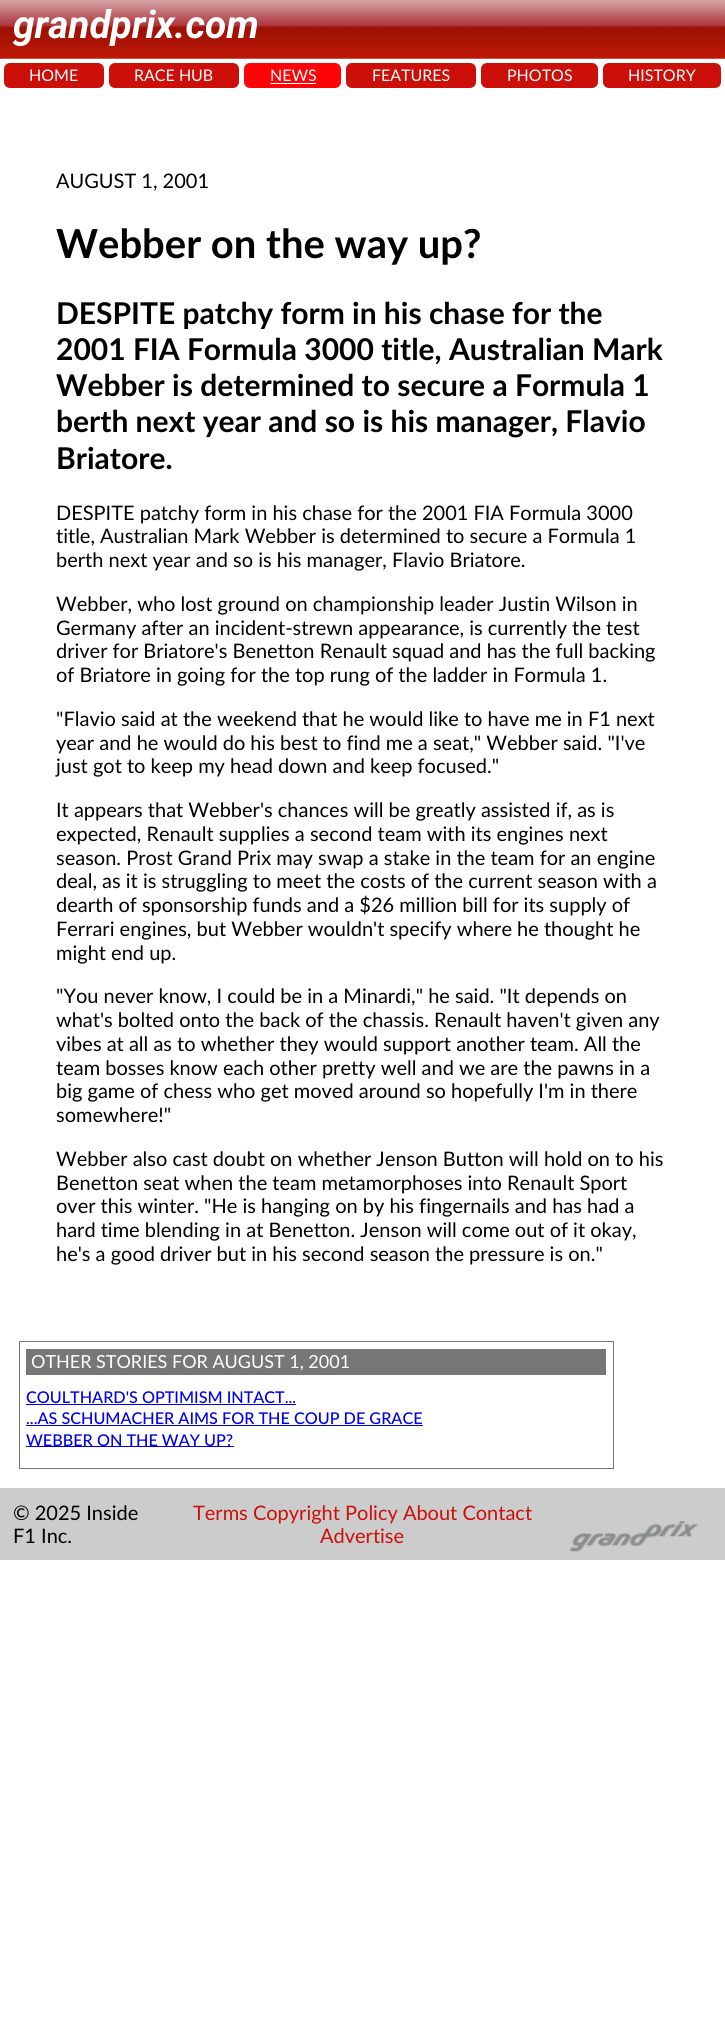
import math
import cairo



def rounded_rect(context, x, y, w, h, r):
    context.new_sub_path()
    for i, (u, v) in enumerate([(x + w - r, y + h - r), (x + r, y + h - r), (x + r, y + r), (x + w - r, y + r)]):
        context.arc(u, v, r, i * math.pi / 2, (i + 1) * math.pi / 2)
    context.close_path()


def draw_image(context, path, x, y, w, h):
    context.save()
    context.set_source_surface(cairo.ImageSurface.create_from_png(path), x, y)
    context.rectangle(x, y, w, h)
    context.fill()
    context.restore()


def draw(context):
    context.set_source_rgb(1, 1, 1)
    context.paint()
    draw_image(context, "images/1.png", 0, 0, 725, 59)
    context.set_source_rgb(204 / 255, 15 / 255, 9 / 255)
    rounded_rect(context, 4, 63, 100, 25, 6)
    context.fill()
    rounded_rect(context, 109, 63, 130, 25, 6)
    context.fill()
    context.set_source_rgb(1, 3 / 255, 9 / 255)
    rounded_rect(context, 244, 63, 97, 25, 6)
    context.fill()
    context.set_source_rgb(1, 1, 1)
    context.rectangle(270, 83, 46, 1)
    context.fill()
    context.set_source_rgb(204 / 255, 15 / 255, 9 / 255)
    rounded_rect(context, 346, 63, 130, 25, 6)
    context.fill()
    rounded_rect(context, 481, 63, 117, 25, 6)
    context.fill()
    rounded_rect(context, 603, 63, 118, 25, 6)
    context.fill()
    context.rectangle(19.5, 1341.5, 594, 127)
    context.set_source_rgb(119 / 255, 119 / 255, 119 / 255)
    context.set_line_width(1)
    context.stroke()
    context.rectangle(26, 1349, 580, 26)
    context.fill()
    context.set_source_rgb(0, 0, 238 / 255)
    context.rectangle(26, 1404, 270, 1)
    context.fill()
    context.rectangle(26, 1425, 397, 1)
    context.fill()
    context.rectangle(26, 1446, 208, 1)
    context.fill()
    context.set_source_rgb(204 / 255, 204 / 255, 204 / 255)
    context.rectangle(0, 1488, 725, 72)
    context.fill()
    draw_image(context, "images/2.png", 569, 1521, 129, 31)
    context.select_font_face("Roboto", cairo.FontSlant.ITALIC, cairo.FontWeight.BOLD)
    context.set_font_size(38.75)
    context.set_source_rgb(1, 1, 1)
    context.move_to(13, 38)
    context.show_text("grandprix.com")
    context.select_font_face("Lato")
    context.set_font_size(16)
    context.move_to(29, 81)
    context.show_text("HOME")
    context.move_to(134, 81)
    context.show_text("RACE HUB")
    context.move_to(270, 81)
    context.show_text("NEWS")
    context.move_to(372, 81)
    context.show_text("FEATURES")
    context.move_to(507, 81)
    context.show_text("PHOTOS")
    context.move_to(628, 81)
    context.show_text("HISTORY")
    context.set_font_size(20)
    context.set_source_rgb(0, 0, 0)
    context.move_to(56, 188)
    context.show_text("AUGUST 1, 2001")
    context.select_font_face("Lato", cairo.FontSlant.NORMAL, cairo.FontWeight.BOLD)
    context.set_font_size(40)
    context.move_to(56, 258)
    context.show_text("Webber on the way up?")
    context.set_font_size(30)
    context.move_to(56, 324)
    context.show_text("DESPITE patchy form in his chase for the")
    context.move_to(56, 360)
    context.show_text("2001 FIA Formula 3000 title, Australian Mark")
    context.move_to(56, 396)
    context.show_text("Webber is determined to secure a Formula 1")
    context.move_to(56, 432)
    context.show_text("berth next year and so is his manager, Flavio")
    context.move_to(56, 469)
    context.show_text("Briatore.")
    context.select_font_face("Lato")
    context.set_font_size(20)
    context.move_to(56, 520)
    context.show_text("DESPITE patchy form in his chase for the 2001 FIA Formula 3000")
    context.move_to(56, 543)
    context.show_text("title, Australian Mark Webber is determined to secure a Formula 1")
    context.move_to(56, 567)
    context.show_text("berth next year and so is his manager, Flavio Briatore.")
    context.move_to(56, 611)
    context.show_text("Webber, who lost ground on championship leader Justin Wilson in")
    context.move_to(56, 635)
    context.show_text("Germany after an incident-strewn appearance, is currently the test")
    context.move_to(56, 658)
    context.show_text("driver for Briatore's Benetton Renault squad and has the full backing")
    context.move_to(56, 682)
    context.show_text("of Briatore in going for the top rung of the ladder in Formula 1.")
    context.move_to(56, 726)
    context.show_text("\"Flavio said at the weekend that he would like to have me in F1 next")
    context.move_to(56, 750)
    context.show_text("year and he would do his best to find me a seat,\" Webber said. \"I've")
    context.move_to(56, 773)
    context.show_text("just got to keep my head down and keep focused.\"")
    context.move_to(56, 817)
    context.show_text("It appears that Webber's chances will be greatly assisted if, as is")
    context.move_to(56, 841)
    context.show_text("expected, Renault supplies a second team with its engines next")
    context.move_to(56, 865)
    context.show_text("season. Prost Grand Prix may swap a stake in the team for an engine")
    context.move_to(56, 888)
    context.show_text("deal, as it is struggling to meet the costs of the current season with a")
    context.move_to(56, 912)
    context.show_text("dearth of sponsorship funds and a $26 million bill for its supply of")
    context.move_to(56, 936)
    context.show_text("Ferrari engines, but Webber wouldn't specify where he thought he")
    context.move_to(56, 960)
    context.show_text("might end up.")
    context.move_to(56, 1003)
    context.show_text("\"You never know, I could be in a Minardi,\" he said. \"It depends on")
    context.move_to(56, 1027)
    context.show_text("what's bolted onto the back of the chassis. Renault haven't given any")
    context.move_to(56, 1051)
    context.show_text("vibes at all as to whether they would support another team. All the")
    context.move_to(56, 1075)
    context.show_text("team bosses know each other pretty well and we are the pawns in a")
    context.move_to(56, 1098)
    context.show_text("big game of chess who get moved around so hopefully I'm in there")
    context.move_to(56, 1122)
    context.show_text("somewhere!\"")
    context.move_to(56, 1166)
    context.show_text("Webber also cast doubt on whether Jenson Button will hold on to his")
    context.move_to(56, 1190)
    context.show_text("Benetton seat when the team metamorphoses into Renault Sport")
    context.move_to(56, 1213)
    context.show_text("over this winter. \"He is hanging on by his fingernails and has had a")
    context.move_to(56, 1237)
    context.show_text("hard time blending in at Benetton. Jenson will come out of it okay,")
    context.move_to(56, 1261)
    context.show_text("he's a good driver but in his second season the pressure is on.\"")
    context.set_font_size(18)
    context.set_source_rgb(1, 1, 1)
    context.move_to(31, 1368)
    context.show_text("OTHER STORIES FOR AUGUST 1, 2001")
    context.select_font_face("Lato Medium")
    context.set_font_size(16.2)
    context.set_source_rgb(0, 0, 238 / 255)
    context.move_to(26, 1403)
    context.show_text("COULTHARD'S OPTIMISM INTACT...")
    context.move_to(26, 1424)
    context.show_text("...AS SCHUMACHER AIMS FOR THE COUP DE GRACE")
    context.move_to(26, 1446)
    context.show_text("WEBBER ON THE WAY UP?")
    context.select_font_face("Lato")
    context.set_font_size(20)
    context.set_source_rgb(0, 0, 0)
    context.move_to(13, 1520)
    context.show_text("© 2025 Inside")
    context.move_to(13, 1543)
    context.show_text("F1 Inc.")
    context.set_source_rgb(204 / 255, 15 / 255, 9 / 255)
    context.move_to(193, 1520)
    context.show_text("Terms Copyright Policy About Contact")
    context.move_to(320, 1543)
    context.show_text("Advertise")


surface = cairo.ImageSurface(cairo.Format.RGB24, 725, 2021)
context = cairo.Context(surface)
options = cairo.FontOptions()
options.set_hint_metrics(cairo.HintMetrics.OFF)
options.set_hint_style(cairo.HintStyle.NONE)
context.set_font_options(options)
context.set_miter_limit(4)
draw(context)
surface.write_to_png("out.png")
